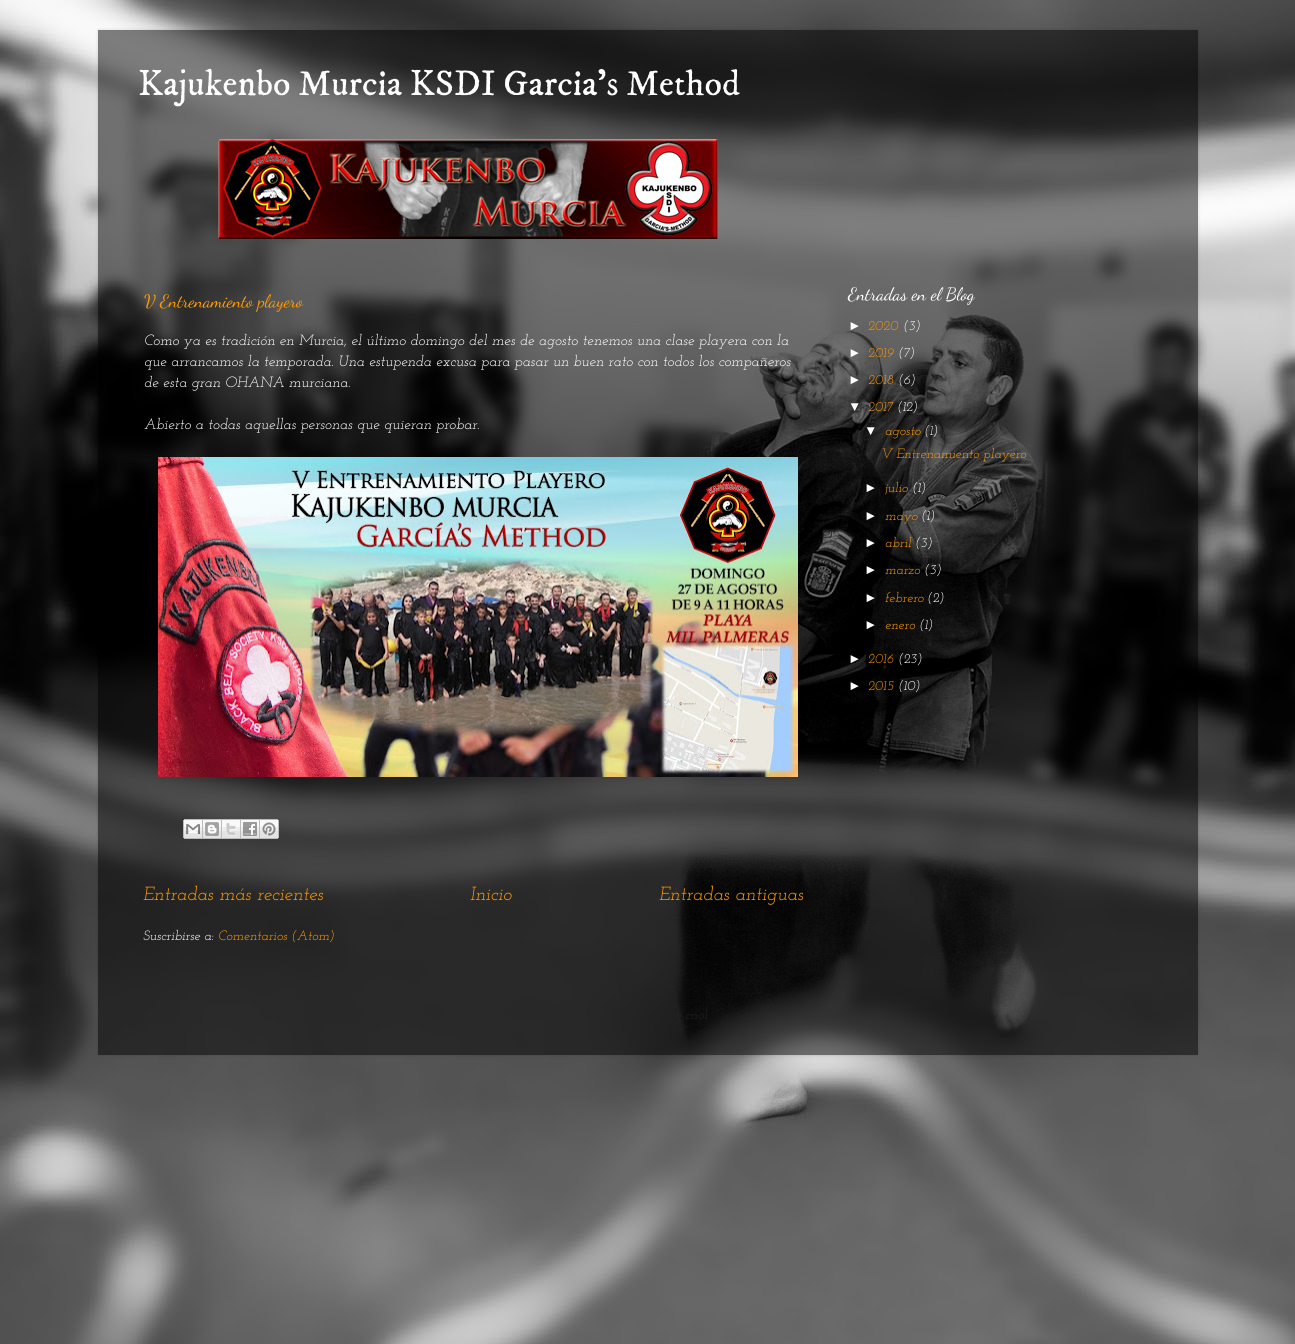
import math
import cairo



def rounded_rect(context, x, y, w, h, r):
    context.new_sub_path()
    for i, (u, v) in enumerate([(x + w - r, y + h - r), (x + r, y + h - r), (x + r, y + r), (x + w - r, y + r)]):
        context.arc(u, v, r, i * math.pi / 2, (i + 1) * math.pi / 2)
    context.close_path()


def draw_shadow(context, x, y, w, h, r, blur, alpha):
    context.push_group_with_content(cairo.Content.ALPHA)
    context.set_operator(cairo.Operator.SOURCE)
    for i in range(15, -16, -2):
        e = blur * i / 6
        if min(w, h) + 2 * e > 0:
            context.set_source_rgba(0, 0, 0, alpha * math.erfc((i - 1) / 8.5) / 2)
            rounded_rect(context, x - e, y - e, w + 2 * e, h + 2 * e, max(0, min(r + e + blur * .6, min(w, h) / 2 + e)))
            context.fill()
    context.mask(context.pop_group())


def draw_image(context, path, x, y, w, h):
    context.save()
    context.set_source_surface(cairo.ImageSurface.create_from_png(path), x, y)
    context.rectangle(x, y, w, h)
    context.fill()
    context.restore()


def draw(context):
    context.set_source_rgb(1, 1, 1)
    context.paint()
    draw_image(context, "images/1.png", 0, 0, 1295, 1344)
    context.save()
    context.set_fill_rule(cairo.FillRule.EVEN_ODD)
    context.new_path()
    context.move_to(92, 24)
    context.line_to(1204, 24)
    context.line_to(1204, 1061)
    context.line_to(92, 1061)
    context.close_path()
    context.move_to(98, 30)
    context.line_to(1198, 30)
    context.line_to(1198, 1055)
    context.line_to(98, 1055)
    context.close_path()
    context.clip()
    context.set_source_rgb(0, 0, 0)
    draw_shadow(context, 98, 30, 1100, 1025, 0, 1.5, 0.15)
    context.restore()
    context.set_source_rgba(0, 0, 0, 0.5)
    context.rectangle(98, 30, 1100, 1025)
    context.fill()
    draw_image(context, "images/2.png", 218, 139, 500, 100)
    draw_image(context, "images/3.png", 158, 457, 640, 320)
    draw_image(context, "images/4.png", 183, 819, 20, 20)
    draw_image(context, "images/5.png", 203, 819, 19, 20)
    draw_image(context, "images/6.png", 222, 819, 19, 20)
    draw_image(context, "images/7.png", 241, 819, 19, 20)
    draw_image(context, "images/8.png", 260, 819, 19, 20)
    context.select_font_face("IM FELL DW Pica")
    context.set_font_size(36)
    context.set_source_rgb(1, 1, 1)
    context.move_to(138, 95)
    context.show_text("Kajukenbo Murcia KSDI Garcia's Method")
    context.select_font_face("Dancing Script")
    context.set_font_size(18)
    context.set_source_rgb(1, 153 / 255, 0)
    context.move_to(144, 307)
    context.show_text("V Entrenamiento playero")
    context.select_font_face("Josefin Slab Thin", cairo.FontSlant.ITALIC)
    context.set_font_size(14.85)
    context.set_source_rgb(1, 1, 1)
    context.move_to(144, 345)
    context.show_text("Como ya es tradición en Murcia, el último domingo del mes de agosto tenemos una clase playera con la")
    context.move_to(144, 366)
    context.show_text("que arrancamos la temporada. Una estupenda excusa para pasar un buen rato con todos los compañeros")
    context.move_to(144, 387)
    context.show_text("de esta gran OHANA murciana.")
    context.move_to(144, 429)
    context.show_text("Abierto a todas aquellas personas que quieran probar.")
    context.set_font_size(19)
    context.set_source_rgb(1, 153 / 255, 0)
    context.move_to(143, 900)
    context.show_text("Entradas más recientes")
    context.move_to(470, 900)
    context.show_text("Inicio")
    context.move_to(659, 900)
    context.show_text("Entradas antiguas")
    context.set_font_size(13.5)
    context.set_source_rgb(1, 1, 1)
    context.move_to(143, 940)
    context.show_text("Suscribirse a:")
    context.set_source_rgb(1, 153 / 255, 0)
    context.move_to(218, 940)
    context.show_text("Comentarios (Atom)")
    context.select_font_face("Dancing Script")
    context.set_font_size(18)
    context.set_source_rgb(1, 1, 1)
    context.move_to(848, 300)
    context.show_text("Entradas en el Blog")
    context.select_font_face("Liberation Sans", cairo.FontSlant.ITALIC)
    context.set_font_size(13.5)
    context.move_to(848, 330)
    context.show_text("►")
    context.select_font_face("Josefin Slab Thin", cairo.FontSlant.ITALIC)
    context.set_source_rgb(1, 153 / 255, 0)
    context.move_to(868, 330)
    context.show_text("2020")
    context.set_source_rgb(1, 1, 1)
    context.move_to(903, 330)
    context.show_text("(3)")
    context.select_font_face("Liberation Sans", cairo.FontSlant.ITALIC)
    context.move_to(848, 357)
    context.show_text("►")
    context.select_font_face("Josefin Slab Thin", cairo.FontSlant.ITALIC)
    context.set_source_rgb(1, 153 / 255, 0)
    context.move_to(868, 357)
    context.show_text("2019")
    context.set_source_rgb(1, 1, 1)
    context.move_to(898, 357)
    context.show_text("(7)")
    context.select_font_face("Liberation Sans", cairo.FontSlant.ITALIC)
    context.move_to(848, 384)
    context.show_text("►")
    context.select_font_face("Josefin Slab Thin", cairo.FontSlant.ITALIC)
    context.set_source_rgb(1, 153 / 255, 0)
    context.move_to(868, 384)
    context.show_text("2018")
    context.set_source_rgb(1, 1, 1)
    context.move_to(898, 384)
    context.show_text("(6)")
    context.select_font_face("Liberation Sans", cairo.FontSlant.ITALIC)
    context.move_to(848, 411)
    context.show_text("▼")
    context.select_font_face("Josefin Slab Thin", cairo.FontSlant.ITALIC)
    context.set_source_rgb(1, 153 / 255, 0)
    context.move_to(868, 411)
    context.show_text("2017")
    context.set_source_rgb(1, 1, 1)
    context.move_to(897, 411)
    context.show_text("(12)")
    context.select_font_face("Liberation Sans", cairo.FontSlant.ITALIC)
    context.move_to(864, 435)
    context.show_text("▼")
    context.select_font_face("Josefin Slab Thin", cairo.FontSlant.ITALIC)
    context.set_source_rgb(1, 153 / 255, 0)
    context.move_to(885, 435)
    context.show_text("agosto")
    context.set_source_rgb(1, 1, 1)
    context.move_to(924, 435)
    context.show_text("(1)")
    context.set_source_rgb(1, 153 / 255, 0)
    context.move_to(881, 458)
    context.show_text("V Entrenamiento playero")
    context.select_font_face("Liberation Sans", cairo.FontSlant.ITALIC)
    context.set_source_rgb(1, 1, 1)
    context.move_to(864, 492)
    context.show_text("►")
    context.select_font_face("Josefin Slab Thin", cairo.FontSlant.ITALIC)
    context.set_source_rgb(1, 153 / 255, 0)
    context.move_to(885, 492)
    context.show_text("julio")
    context.set_source_rgb(1, 1, 1)
    context.move_to(912, 492)
    context.show_text("(1)")
    context.select_font_face("Liberation Sans", cairo.FontSlant.ITALIC)
    context.move_to(864, 520)
    context.show_text("►")
    context.select_font_face("Josefin Slab Thin", cairo.FontSlant.ITALIC)
    context.set_source_rgb(1, 153 / 255, 0)
    context.move_to(885, 520)
    context.show_text("mayo")
    context.set_source_rgb(1, 1, 1)
    context.move_to(921, 520)
    context.show_text("(1)")
    context.select_font_face("Liberation Sans", cairo.FontSlant.ITALIC)
    context.move_to(864, 547)
    context.show_text("►")
    context.select_font_face("Josefin Slab Thin", cairo.FontSlant.ITALIC)
    context.set_source_rgb(1, 153 / 255, 0)
    context.move_to(885, 547)
    context.show_text("abril")
    context.set_source_rgb(1, 1, 1)
    context.move_to(915, 547)
    context.show_text("(3)")
    context.select_font_face("Liberation Sans", cairo.FontSlant.ITALIC)
    context.move_to(864, 574)
    context.show_text("►")
    context.select_font_face("Josefin Slab Thin", cairo.FontSlant.ITALIC)
    context.set_source_rgb(1, 153 / 255, 0)
    context.move_to(885, 574)
    context.show_text("marzo")
    context.set_source_rgb(1, 1, 1)
    context.move_to(924, 574)
    context.show_text("(3)")
    context.select_font_face("Liberation Sans", cairo.FontSlant.ITALIC)
    context.move_to(864, 602)
    context.show_text("►")
    context.select_font_face("Josefin Slab Thin", cairo.FontSlant.ITALIC)
    context.set_source_rgb(1, 153 / 255, 0)
    context.move_to(885, 602)
    context.show_text("febrero")
    context.set_source_rgb(1, 1, 1)
    context.move_to(927, 602)
    context.show_text("(2)")
    context.select_font_face("Liberation Sans", cairo.FontSlant.ITALIC)
    context.move_to(864, 629)
    context.show_text("►")
    context.select_font_face("Josefin Slab Thin", cairo.FontSlant.ITALIC)
    context.set_source_rgb(1, 153 / 255, 0)
    context.move_to(885, 629)
    context.show_text("enero")
    context.set_source_rgb(1, 1, 1)
    context.move_to(919, 629)
    context.show_text("(1)")
    context.select_font_face("Liberation Sans", cairo.FontSlant.ITALIC)
    context.move_to(848, 663)
    context.show_text("►")
    context.select_font_face("Josefin Slab Thin", cairo.FontSlant.ITALIC)
    context.set_source_rgb(1, 153 / 255, 0)
    context.move_to(868, 663)
    context.show_text("2016")
    context.set_source_rgb(1, 1, 1)
    context.move_to(898, 663)
    context.show_text("(23)")
    context.select_font_face("Liberation Sans", cairo.FontSlant.ITALIC)
    context.move_to(848, 690)
    context.show_text("►")
    context.select_font_face("Josefin Slab Thin", cairo.FontSlant.ITALIC)
    context.set_source_rgb(1, 153 / 255, 0)
    context.move_to(868, 690)
    context.show_text("2015")
    context.set_source_rgb(1, 1, 1)
    context.move_to(898, 690)
    context.show_text("(10)")
    context.set_source_rgb(32 / 255, 32 / 255, 32 / 255)
    context.move_to(685, 1019)
    context.show_text("cnol")


surface = cairo.ImageSurface(cairo.Format.RGB24, 1295, 1344)
context = cairo.Context(surface)
options = cairo.FontOptions()
options.set_hint_metrics(cairo.HintMetrics.OFF)
options.set_hint_style(cairo.HintStyle.NONE)
context.set_font_options(options)
context.set_miter_limit(4)
draw(context)
surface.write_to_png("out.png")
